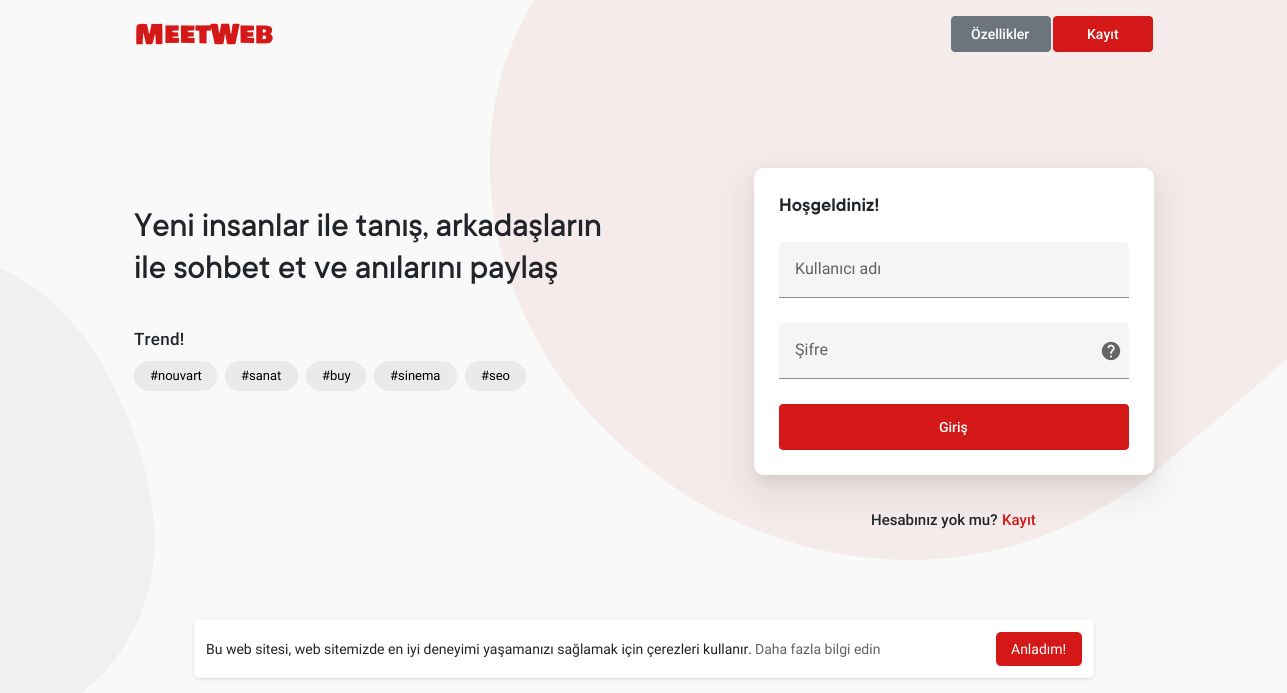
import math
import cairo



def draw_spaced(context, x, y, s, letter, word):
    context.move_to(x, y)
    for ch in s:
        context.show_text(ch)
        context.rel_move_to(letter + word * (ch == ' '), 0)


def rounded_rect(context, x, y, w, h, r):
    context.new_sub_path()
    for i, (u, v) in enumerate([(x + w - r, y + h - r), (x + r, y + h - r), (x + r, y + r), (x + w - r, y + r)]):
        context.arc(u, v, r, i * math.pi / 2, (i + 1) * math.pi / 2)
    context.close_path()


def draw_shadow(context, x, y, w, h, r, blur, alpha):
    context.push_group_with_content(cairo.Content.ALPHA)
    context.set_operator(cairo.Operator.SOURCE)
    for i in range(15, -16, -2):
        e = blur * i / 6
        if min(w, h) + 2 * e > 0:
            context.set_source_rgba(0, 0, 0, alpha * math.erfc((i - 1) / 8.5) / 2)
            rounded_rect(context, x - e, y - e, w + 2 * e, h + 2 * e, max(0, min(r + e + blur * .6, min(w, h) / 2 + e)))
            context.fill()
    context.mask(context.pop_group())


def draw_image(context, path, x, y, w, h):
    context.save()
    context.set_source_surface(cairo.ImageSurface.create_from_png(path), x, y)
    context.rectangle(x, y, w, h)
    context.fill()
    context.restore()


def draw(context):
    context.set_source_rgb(249 / 255, 249 / 255, 249 / 255)
    context.paint()
    draw_image(context, "images/1.png", 490, 0, 797, 560)
    draw_image(context, "images/2.png", 0, 268, 154, 425)
    draw_image(context, "images/3.png", 136, 23, 137, 22)
    context.set_source_rgb(108 / 255, 117 / 255, 125 / 255)
    rounded_rect(context, 951, 16, 100, 36, 4)
    context.fill()
    context.set_source_rgb(212 / 255, 23 / 255, 23 / 255)
    rounded_rect(context, 1053, 16, 100, 36, 4)
    context.fill()
    context.set_source_rgb(234 / 255, 234 / 255, 234 / 255)
    rounded_rect(context, 134, 361, 83, 30, 15)
    context.fill()
    rounded_rect(context, 225, 361, 73, 30, 15)
    context.fill()
    rounded_rect(context, 306, 361, 60, 30, 15)
    context.fill()
    rounded_rect(context, 374, 361, 83, 30, 15)
    context.fill()
    rounded_rect(context, 465, 361, 61, 30, 15)
    context.fill()
    context.set_source_rgb(0, 0, 0)
    draw_shadow(context, 754, 183, 400, 307, 10, 20, 0.1)
    draw_shadow(context, 754, 173, 400, 307, 10, 5, 0.05)
    context.set_source_rgb(1, 1, 1)
    rounded_rect(context, 754, 168, 400, 307, 10)
    context.fill()
    context.set_source_rgb(245 / 255, 245 / 255, 245 / 255)
    context.new_path()
    context.move_to(783, 242)
    context.line_to(1125, 242)
    context.curve_to(1127, 242, 1129, 244, 1129, 246)
    context.line_to(1129, 298)
    context.line_to(779, 298)
    context.line_to(779, 246)
    context.curve_to(779, 244, 781, 242, 783, 242)
    context.close_path()
    context.fill()
    context.set_source_rgb(142 / 255, 142 / 255, 142 / 255)
    context.rectangle(779, 297, 350, 1)
    context.fill()
    context.set_source_rgb(245 / 255, 245 / 255, 245 / 255)
    context.new_path()
    context.move_to(783, 323)
    context.line_to(1125, 323)
    context.curve_to(1127, 323, 1129, 325, 1129, 327)
    context.line_to(1129, 379)
    context.line_to(779, 379)
    context.line_to(779, 327)
    context.curve_to(779, 325, 781, 323, 783, 323)
    context.close_path()
    context.fill()
    context.set_source_rgb(142 / 255, 142 / 255, 142 / 255)
    context.rectangle(779, 378, 350, 1)
    context.fill()
    draw_image(context, "images/4.png", 1101, 341, 20, 20)
    context.set_source_rgb(212 / 255, 23 / 255, 23 / 255)
    rounded_rect(context, 779, 404, 350, 46, 4)
    context.fill()
    context.set_source_rgb(0, 0, 0)
    draw_shadow(context, 194, 621, 900, 58, 5, 1, 0.06)
    draw_shadow(context, 194, 621, 900, 58, 5, 1.5, 0.1)
    context.set_source_rgb(1, 1, 1)
    rounded_rect(context, 194, 620, 900, 58, 5)
    context.fill()
    context.set_source_rgb(212 / 255, 23 / 255, 23 / 255)
    rounded_rect(context, 996, 632, 86, 34, 5)
    context.fill()
    context.select_font_face("Roboto Medium")
    context.set_font_size(14)
    context.set_source_rgb(1, 1, 1)
    context.move_to(971, 39)
    context.show_text("Özellikler")
    context.move_to(1087, 39)
    context.show_text("Kayıt")
    context.select_font_face("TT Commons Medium")
    context.set_font_size(36)
    context.set_source_rgb(33 / 255, 37 / 255, 41 / 255)
    draw_spaced(context, 134, 236, "Yeni insanlar ile tanış, arkadaşların", -0.5, 0)
    draw_spaced(context, 134, 278, "ile sohbet et ve anılarını paylaş", -0.5, 0)
    context.select_font_face("Roboto Medium")
    context.set_font_size(17)
    draw_spaced(context, 134, 345, "Trend!", 0.25, 0)
    context.select_font_face("Roboto")
    context.set_font_size(13)
    context.set_source_rgb(0, 0, 0)
    context.move_to(150, 380)
    context.show_text("#nouvart")
    context.move_to(241, 380)
    context.show_text("#sanat")
    context.move_to(322, 380)
    context.show_text("#buy")
    context.move_to(390, 380)
    context.show_text("#sinema")
    context.move_to(481, 380)
    context.show_text("#seo")
    context.select_font_face("TT Commons SemiBold")
    context.set_font_size(20)
    context.set_source_rgb(33 / 255, 37 / 255, 41 / 255)
    context.move_to(779, 211)
    context.show_text("Hoşgeldiniz!")
    context.select_font_face("Roboto")
    context.set_font_size(16)
    context.set_source_rgb(98 / 255, 98 / 255, 98 / 255)
    context.move_to(795, 274)
    context.show_text("Kullanıcı adı")
    context.move_to(795, 355)
    context.show_text("Şifre")
    context.select_font_face("Roboto Medium")
    context.set_font_size(14)
    context.set_source_rgb(1, 1, 1)
    context.move_to(939, 432)
    context.show_text("Giriş")
    context.set_font_size(15)
    context.set_source_rgb(33 / 255, 37 / 255, 41 / 255)
    context.move_to(871, 525)
    context.show_text("Hesabınız yok mu?")
    context.set_source_rgb(212 / 255, 23 / 255, 23 / 255)
    context.move_to(1002, 525)
    context.show_text("Kayıt")
    context.select_font_face("Roboto")
    context.set_font_size(14)
    context.set_source_rgb(33 / 255, 37 / 255, 41 / 255)
    context.move_to(206, 654)
    context.show_text("Bu web sitesi, web sitemizde en iyi deneyimi yaşamanızı sağlamak için çerezleri kullanır.")
    context.set_source_rgb(98 / 255, 98 / 255, 98 / 255)
    context.move_to(755, 654)
    context.show_text("Daha fazla bilgi edin")
    context.set_source_rgb(1, 1, 1)
    context.move_to(1011, 654)
    context.show_text("Anladım!")


surface = cairo.ImageSurface(cairo.Format.RGB24, 1287, 693)
context = cairo.Context(surface)
options = cairo.FontOptions()
options.set_hint_metrics(cairo.HintMetrics.OFF)
options.set_hint_style(cairo.HintStyle.NONE)
context.set_font_options(options)
context.set_miter_limit(4)
draw(context)
surface.write_to_png("out.png")
